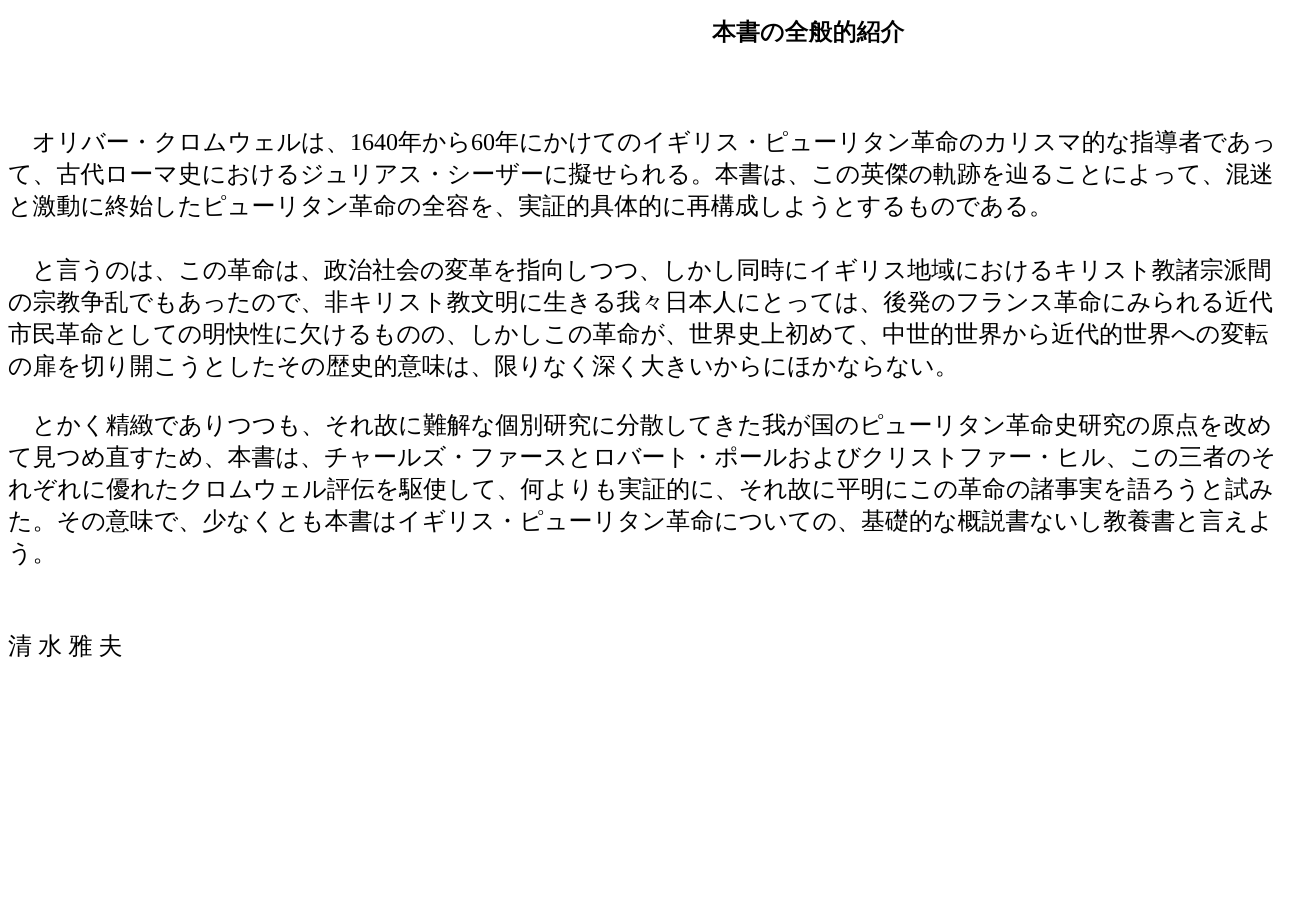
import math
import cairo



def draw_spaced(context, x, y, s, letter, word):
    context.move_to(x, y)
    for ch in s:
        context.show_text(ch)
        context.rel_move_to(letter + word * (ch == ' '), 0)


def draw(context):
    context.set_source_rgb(1, 1, 1)
    context.paint()
    context.select_font_face("WenQuanYi Zen Hei", cairo.FontSlant.NORMAL, cairo.FontWeight.BOLD)
    context.set_font_size(24)
    context.set_source_rgb(0, 0, 0)
    context.move_to(712, 40)
    context.show_text("本書の全般的紹介")
    context.select_font_face("WenQuanYi Zen Hei Medium")
    context.move_to(32, 150)
    context.show_text("オリバー・クロムウェルは、")
    context.select_font_face("Liberation Serif")
    context.move_to(350, 150)
    context.show_text("1640")
    context.select_font_face("WenQuanYi Zen Hei Medium")
    context.move_to(398, 150)
    context.show_text("年から")
    context.select_font_face("Liberation Serif")
    context.move_to(471, 150)
    context.show_text("60")
    context.select_font_face("WenQuanYi Zen Hei Medium")
    context.move_to(495, 150)
    context.show_text("年にかけてのイギリス・ピューリタン革命のカリスマ的な指導者であっ")
    context.move_to(8, 182)
    context.show_text("て、古代ローマ史におけるジュリアス・シーザーに擬せられる。本書は、この英傑の軌跡を辿ることによって、混迷")
    context.move_to(8, 214)
    context.show_text("と激動に終始したピューリタン革命の全容を、実証的具体的に再構成しようとするものである。")
    context.move_to(32, 278)
    context.show_text("と言うのは、この革命は、政治社会の変革を指向しつつ、しかし同時にイギリス地域におけるキリスト教諸宗派間")
    context.move_to(8, 310)
    context.show_text("の宗教争乱でもあったので、非キリスト教文明に生きる我々日本人にとっては、後発のフランス革命にみられる近代")
    context.move_to(8, 342)
    context.show_text("市民革命としての明快性に欠けるものの、しかしこの革命が、世界史上初めて、中世的世界から近代的世界への変転")
    context.move_to(8, 374)
    context.show_text("の扉を切り開こうとしたその歴史的意味は、限りなく深く大きいからにほかならない。")
    context.move_to(32, 433)
    context.show_text("とかく精緻でありつつも、それ故に難解な個別研究に分散してきた我が国のピューリタン革命史研究の原点を改め")
    context.move_to(8, 465)
    context.show_text("て見つめ直すため、本書は、チャールズ・ファースとロバート・ポールおよびクリストファー・ヒル、この三者のそ")
    context.move_to(8, 497)
    context.show_text("れぞれに優れたクロムウェル評伝を駆使して、何よりも実証的に、それ故に平明にこの革命の諸事実を語ろうと試み")
    context.move_to(8, 529)
    context.show_text("た。その意味で、少なくとも本書はイギリス・ピューリタン革命についての、基礎的な概説書ないし教養書と言えよ")
    context.move_to(8, 561)
    context.show_text("う。")
    draw_spaced(context, 8, 654, "清 水 雅 夫", 0, -1)


surface = cairo.ImageSurface(cairo.Format.RGB24, 1295, 910)
context = cairo.Context(surface)
options = cairo.FontOptions()
options.set_hint_metrics(cairo.HintMetrics.OFF)
options.set_hint_style(cairo.HintStyle.NONE)
context.set_font_options(options)
context.set_miter_limit(4)
draw(context)
surface.write_to_png("out.png")
